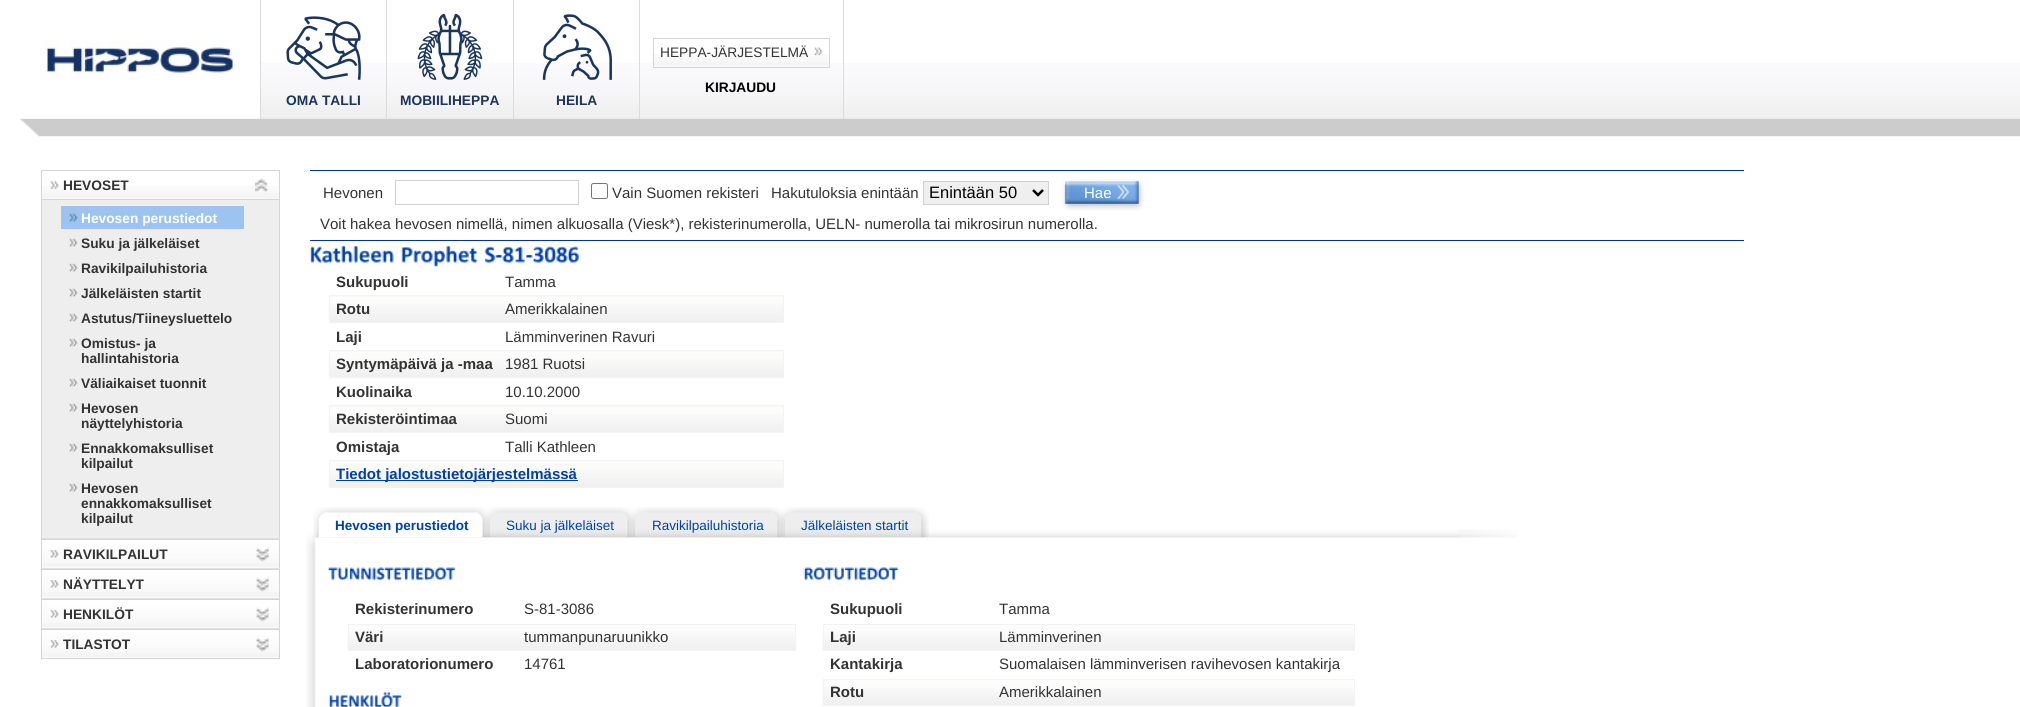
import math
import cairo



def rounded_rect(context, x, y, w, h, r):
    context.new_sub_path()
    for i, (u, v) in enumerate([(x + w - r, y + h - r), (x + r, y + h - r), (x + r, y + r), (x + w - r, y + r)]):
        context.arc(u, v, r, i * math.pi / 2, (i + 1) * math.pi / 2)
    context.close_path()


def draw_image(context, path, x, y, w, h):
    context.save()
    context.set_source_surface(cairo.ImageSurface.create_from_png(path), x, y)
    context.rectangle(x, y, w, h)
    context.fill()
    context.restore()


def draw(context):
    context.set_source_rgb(1, 1, 1)
    context.paint()
    draw_image(context, "images/1.png", 20, 63, 2000, 56)
    draw_image(context, "images/8.png", 20, 118, 2000, 19)
    draw_image(context, "images/2.png", 20, 40, 240, 79)
    context.set_source_rgb(219 / 255, 219 / 255, 219 / 255)
    context.rectangle(843, 0, 1, 119)
    context.fill()
    context.rectangle(639, 0, 1, 119)
    context.fill()
    draw_image(context, "images/3.png", 652, 54, 177, 12)
    context.rectangle(653.5, 38.5, 176, 29)
    context.set_source_rgb(213 / 255, 213 / 255, 213 / 255)
    context.set_line_width(1)
    context.stroke()
    draw_image(context, "images/4.png", 814, 47, 9, 9)
    context.set_source_rgb(219 / 255, 219 / 255, 219 / 255)
    context.rectangle(260, 0, 1, 119)
    context.fill()
    draw_image(context, "images/5.png", 286, 16, 75, 64)
    context.rectangle(386, 0, 1, 119)
    context.fill()
    draw_image(context, "images/6.png", 417, 13, 66, 67)
    context.rectangle(513, 0, 1, 119)
    context.fill()
    draw_image(context, "images/7.png", 542, 14, 70, 66)
    draw_image(context, "images/9.png", 42, 186, 237, 13)
    context.rectangle(41.5, 170.5, 238, 29)
    context.set_source_rgb(213 / 255, 213 / 255, 213 / 255)
    context.stroke()
    draw_image(context, "images/10.png", 50, 181, 9, 8)
    draw_image(context, "images/11.png", 255, 178, 13, 15)
    context.set_source_rgb(238 / 255, 238 / 255, 238 / 255)
    context.rectangle(42, 200, 237, 338)
    context.fill()
    context.set_source_rgb(213 / 255, 213 / 255, 213 / 255)
    context.rectangle(279, 200, 1, 339)
    context.fill()
    context.rectangle(41, 538, 239, 1)
    context.fill()
    context.rectangle(41, 200, 1, 339)
    context.fill()
    context.set_source_rgb(156 / 255, 196 / 255, 240 / 255)
    context.rectangle(61, 206, 183, 23)
    context.fill()
    draw_image(context, "images/12.png", 69, 213, 9, 9)
    draw_image(context, "images/13.png", 69, 238, 9, 9)
    draw_image(context, "images/13.png", 69, 263, 9, 9)
    draw_image(context, "images/13.png", 69, 288, 9, 9)
    draw_image(context, "images/13.png", 69, 313, 9, 9)
    draw_image(context, "images/13.png", 69, 338, 9, 9)
    draw_image(context, "images/13.png", 69, 378, 9, 9)
    draw_image(context, "images/13.png", 69, 403, 9, 9)
    draw_image(context, "images/13.png", 69, 443, 9, 9)
    draw_image(context, "images/13.png", 69, 483, 9, 9)
    draw_image(context, "images/14.png", 41, 538, 239, 30)
    context.rectangle(41.5, 539.5, 238, 29)
    context.set_source_rgb(213 / 255, 213 / 255, 213 / 255)
    context.stroke()
    draw_image(context, "images/15.png", 50, 550, 9, 8)
    draw_image(context, "images/16.png", 256, 547, 13, 15)
    draw_image(context, "images/14.png", 41, 568, 239, 30)
    context.rectangle(41.5, 569.5, 238, 29)
    context.stroke()
    draw_image(context, "images/15.png", 50, 580, 9, 8)
    draw_image(context, "images/16.png", 256, 577, 13, 15)
    draw_image(context, "images/14.png", 41, 598, 239, 30)
    context.rectangle(41.5, 599.5, 238, 29)
    context.stroke()
    draw_image(context, "images/15.png", 50, 610, 9, 8)
    draw_image(context, "images/16.png", 256, 607, 13, 15)
    draw_image(context, "images/14.png", 41, 628, 239, 30)
    context.rectangle(41.5, 629.5, 238, 29)
    context.stroke()
    draw_image(context, "images/15.png", 50, 640, 9, 8)
    draw_image(context, "images/16.png", 256, 637, 13, 15)
    context.set_source_rgb(0, 51 / 255, 153 / 255)
    context.rectangle(310, 170, 1434, 1)
    context.fill()
    context.rectangle(310, 240, 1434, 1)
    context.fill()
    context.rectangle(395.5, 180.5, 183, 24)
    context.set_source_rgb(209 / 255, 209 / 255, 209 / 255)
    context.stroke()
    rounded_rect(context, 591.5, 183.5, 16, 15, 2)
    context.set_source_rgb(118 / 255, 118 / 255, 118 / 255)
    context.stroke()
    context.set_source_rgb(239 / 255, 239 / 255, 239 / 255)
    context.rectangle(923.5, 181.5, 125, 23)
    context.fill_preserve()
    context.set_source_rgb(209 / 255, 209 / 255, 209 / 255)
    context.stroke()
    context.new_path()
    context.move_to(1033, 190)
    context.line_to(1038, 195)
    context.line_to(1043, 190)
    context.set_source_rgb(0, 0, 0)
    context.set_line_width(2.5)
    context.stroke()
    draw_image(context, "images/17.png", 1061, 179, 84, 32)
    draw_image(context, "images/18.png", 310, 246, 84, 17)
    draw_image(context, "images/19.png", 401, 246, 77, 21)
    draw_image(context, "images/20.png", 484, 246, 95, 17)
    context.set_source_rgb(240 / 255, 240 / 255, 240 / 255)
    context.rectangle(330, 296, 453, 26)
    context.fill()
    draw_image(context, "images/21.png", 328, 296, 455, 25)
    context.rectangle(329.5, 295.5, 454, 27)
    context.set_source_rgb(242 / 255, 243 / 255, 243 / 255)
    context.set_line_width(1)
    context.stroke()
    context.set_source_rgb(240 / 255, 240 / 255, 240 / 255)
    context.rectangle(330, 351, 453, 26)
    context.fill()
    draw_image(context, "images/21.png", 328, 351, 455, 25)
    context.rectangle(329.5, 350.5, 454, 27)
    context.set_source_rgb(242 / 255, 243 / 255, 243 / 255)
    context.stroke()
    context.set_source_rgb(240 / 255, 240 / 255, 240 / 255)
    context.rectangle(330, 406, 453, 26)
    context.fill()
    draw_image(context, "images/21.png", 328, 406, 455, 25)
    context.rectangle(329.5, 405.5, 454, 27)
    context.set_source_rgb(242 / 255, 243 / 255, 243 / 255)
    context.stroke()
    context.set_source_rgb(240 / 255, 240 / 255, 240 / 255)
    context.rectangle(330, 461, 453, 26)
    context.fill()
    draw_image(context, "images/21.png", 328, 461, 455, 25)
    context.rectangle(329.5, 460.5, 454, 27)
    context.set_source_rgb(242 / 255, 243 / 255, 243 / 255)
    context.stroke()
    context.set_source_rgb(0, 64 / 255, 166 / 255)
    context.rectangle(336, 480, 242, 1)
    context.fill()
    draw_image(context, "images/29.png", 306, 529, 1212, 178)
    draw_image(context, "images/25.png", 485, 507, 135, 31)
    draw_image(context, "images/22.png", 475, 507, 15, 31)
    draw_image(context, "images/23.png", 313, 507, 162, 31)
    draw_image(context, "images/24.png", 620, 507, 15, 31)
    draw_image(context, "images/24.png", 770, 507, 15, 31)
    draw_image(context, "images/26.png", 630, 507, 140, 31)
    draw_image(context, "images/27.png", 913, 507, 16, 31)
    draw_image(context, "images/28.png", 780, 507, 134, 31)
    draw_image(context, "images/30.png", 328, 567, 128, 14)
    draw_image(context, "images/31.png", 347, 625, 450, 25)
    context.rectangle(348.5, 624.5, 447, 26)
    context.set_source_rgb(242 / 255, 243 / 255, 243 / 255)
    context.stroke()
    draw_image(context, "images/32.png", 328, 692, 74, 15)
    draw_image(context, "images/33.png", 803, 567, 96, 14)
    draw_image(context, "images/34.png", 822, 625, 532, 25)
    context.rectangle(823.5, 624.5, 531, 26)
    context.stroke()
    draw_image(context, "images/34.png", 822, 680, 532, 25)
    context.rectangle(823.5, 679.5, 531, 26)
    context.stroke()
    context.select_font_face("Liberation Sans")
    context.set_font_size(13.75)
    context.set_source_rgb(51 / 255, 51 / 255, 51 / 255)
    context.move_to(660, 57)
    context.show_text("HEPPA-JÄRJESTELMÄ")
    context.select_font_face("Liberation Sans", cairo.FontSlant.NORMAL, cairo.FontWeight.BOLD)
    context.set_source_rgb(0, 0, 0)
    context.move_to(705, 92)
    context.show_text("KIRJAUDU")
    context.set_source_rgb(27 / 255, 54 / 255, 93 / 255)
    context.move_to(286, 105)
    context.show_text("OMA TALLI")
    context.move_to(400, 105)
    context.show_text("MOBIILIHEPPA")
    context.move_to(556, 105)
    context.show_text("HEILA")
    context.set_source_rgb(51 / 255, 51 / 255, 51 / 255)
    context.move_to(63, 190)
    context.show_text("HEVOSET")
    context.set_source_rgb(1, 1, 1)
    context.move_to(81, 223)
    context.show_text("Hevosen perustiedot")
    context.set_source_rgb(51 / 255, 51 / 255, 51 / 255)
    context.move_to(81, 248)
    context.show_text("Suku ja jälkeläiset")
    context.move_to(81, 273)
    context.show_text("Ravikilpailuhistoria")
    context.move_to(81, 298)
    context.show_text("Jälkeläisten startit")
    context.move_to(81, 323)
    context.show_text("Astutus/Tiineysluettelo")
    context.move_to(81, 348)
    context.show_text("Omistus- ja")
    context.move_to(81, 363)
    context.show_text("hallintahistoria")
    context.move_to(81, 388)
    context.show_text("Väliaikaiset tuonnit")
    context.move_to(81, 413)
    context.show_text("Hevosen")
    context.move_to(81, 428)
    context.show_text("näyttelyhistoria")
    context.move_to(81, 453)
    context.show_text("Ennakkomaksulliset")
    context.move_to(81, 468)
    context.show_text("kilpailut")
    context.move_to(81, 493)
    context.show_text("Hevosen")
    context.move_to(81, 508)
    context.show_text("ennakkomaksulliset")
    context.move_to(81, 523)
    context.show_text("kilpailut")
    context.move_to(63, 559)
    context.show_text("RAVIKILPAILUT")
    context.move_to(63, 589)
    context.show_text("NÄYTTELYT")
    context.move_to(63, 619)
    context.show_text("HENKILÖT")
    context.move_to(63, 649)
    context.show_text("TILASTOT")
    context.select_font_face("Liberation Sans")
    context.set_font_size(15)
    context.move_to(323, 198)
    context.show_text("Hevonen")
    context.move_to(612, 198)
    context.show_text("Vain Suomen rekisteri")
    context.move_to(771, 198)
    context.show_text("Hakutuloksia enintään")
    context.set_font_size(16.5)
    context.set_source_rgb(0, 0, 0)
    context.move_to(929, 198)
    context.show_text("Enintään 50")
    context.set_font_size(15)
    context.set_source_rgb(1, 1, 1)
    context.move_to(1084, 198)
    context.show_text("Hae")
    context.set_source_rgb(51 / 255, 51 / 255, 51 / 255)
    context.move_to(320, 229)
    context.show_text("Voit hakea hevosen nimellä, nimen alkuosalla (Viesk*), rekisterinumerolla, UELN- numerolla tai mikrosirun numerolla.")
    context.select_font_face("Liberation Sans", cairo.FontSlant.NORMAL, cairo.FontWeight.BOLD)
    context.move_to(336, 287)
    context.show_text("Sukupuoli")
    context.select_font_face("Liberation Sans")
    context.move_to(505, 287)
    context.show_text("Tamma")
    context.select_font_face("Liberation Sans", cairo.FontSlant.NORMAL, cairo.FontWeight.BOLD)
    context.move_to(336, 314)
    context.show_text("Rotu")
    context.select_font_face("Liberation Sans")
    context.move_to(505, 314)
    context.show_text("Amerikkalainen")
    context.select_font_face("Liberation Sans", cairo.FontSlant.NORMAL, cairo.FontWeight.BOLD)
    context.move_to(336, 342)
    context.show_text("Laji")
    context.select_font_face("Liberation Sans")
    context.move_to(505, 342)
    context.show_text("Lämminverinen Ravuri")
    context.select_font_face("Liberation Sans", cairo.FontSlant.NORMAL, cairo.FontWeight.BOLD)
    context.move_to(336, 369)
    context.show_text("Syntymäpäivä ja -maa")
    context.select_font_face("Liberation Sans")
    context.move_to(505, 369)
    context.show_text("1981 Ruotsi")
    context.select_font_face("Liberation Sans", cairo.FontSlant.NORMAL, cairo.FontWeight.BOLD)
    context.move_to(336, 397)
    context.show_text("Kuolinaika")
    context.select_font_face("Liberation Sans")
    context.move_to(505, 397)
    context.show_text("10.10.2000")
    context.select_font_face("Liberation Sans", cairo.FontSlant.NORMAL, cairo.FontWeight.BOLD)
    context.move_to(336, 424)
    context.show_text("Rekisteröintimaa")
    context.select_font_face("Liberation Sans")
    context.move_to(505, 424)
    context.show_text("Suomi")
    context.select_font_face("Liberation Sans", cairo.FontSlant.NORMAL, cairo.FontWeight.BOLD)
    context.move_to(336, 452)
    context.show_text("Omistaja")
    context.select_font_face("Liberation Sans")
    context.move_to(505, 452)
    context.show_text("Talli Kathleen")
    context.select_font_face("Liberation Sans", cairo.FontSlant.NORMAL, cairo.FontWeight.BOLD)
    context.set_source_rgb(0, 64 / 255, 166 / 255)
    context.move_to(336, 479)
    context.show_text("Tiedot jalostustietojärjestelmässä")
    context.set_font_size(13.5)
    context.move_to(335, 530)
    context.show_text("Hevosen perustiedot")
    context.select_font_face("Liberation Sans")
    context.move_to(506, 530)
    context.show_text("Suku ja jälkeläiset")
    context.move_to(652, 530)
    context.show_text("Ravikilpailuhistoria")
    context.move_to(801, 530)
    context.show_text("Jälkeläisten startit")
    context.select_font_face("Liberation Sans", cairo.FontSlant.NORMAL, cairo.FontWeight.BOLD)
    context.set_font_size(15)
    context.set_source_rgb(51 / 255, 51 / 255, 51 / 255)
    context.move_to(355, 614)
    context.show_text("Rekisterinumero")
    context.select_font_face("Liberation Sans")
    context.move_to(524, 614)
    context.show_text("S-81-3086")
    context.select_font_face("Liberation Sans", cairo.FontSlant.NORMAL, cairo.FontWeight.BOLD)
    context.move_to(355, 642)
    context.show_text("Väri")
    context.select_font_face("Liberation Sans")
    context.move_to(524, 642)
    context.show_text("tummanpunaruunikko")
    context.select_font_face("Liberation Sans", cairo.FontSlant.NORMAL, cairo.FontWeight.BOLD)
    context.move_to(355, 669)
    context.show_text("Laboratorionumero")
    context.select_font_face("Liberation Sans")
    context.move_to(524, 669)
    context.show_text("14761")
    context.select_font_face("Liberation Sans", cairo.FontSlant.NORMAL, cairo.FontWeight.BOLD)
    context.move_to(830, 614)
    context.show_text("Sukupuoli")
    context.select_font_face("Liberation Sans")
    context.move_to(999, 614)
    context.show_text("Tamma")
    context.select_font_face("Liberation Sans", cairo.FontSlant.NORMAL, cairo.FontWeight.BOLD)
    context.move_to(830, 642)
    context.show_text("Laji")
    context.select_font_face("Liberation Sans")
    context.move_to(999, 642)
    context.show_text("Lämminverinen")
    context.select_font_face("Liberation Sans", cairo.FontSlant.NORMAL, cairo.FontWeight.BOLD)
    context.move_to(830, 669)
    context.show_text("Kantakirja")
    context.select_font_face("Liberation Sans")
    context.move_to(999, 669)
    context.show_text("Suomalaisen lämminverisen ravihevosen kantakirja")
    context.select_font_face("Liberation Sans", cairo.FontSlant.NORMAL, cairo.FontWeight.BOLD)
    context.move_to(830, 697)
    context.show_text("Rotu")
    context.select_font_face("Liberation Sans")
    context.move_to(999, 697)
    context.show_text("Amerikkalainen")


surface = cairo.ImageSurface(cairo.Format.RGB24, 2020, 707)
context = cairo.Context(surface)
options = cairo.FontOptions()
options.set_hint_metrics(cairo.HintMetrics.OFF)
options.set_hint_style(cairo.HintStyle.NONE)
context.set_font_options(options)
context.set_miter_limit(4)
draw(context)
surface.write_to_png("out.png")
